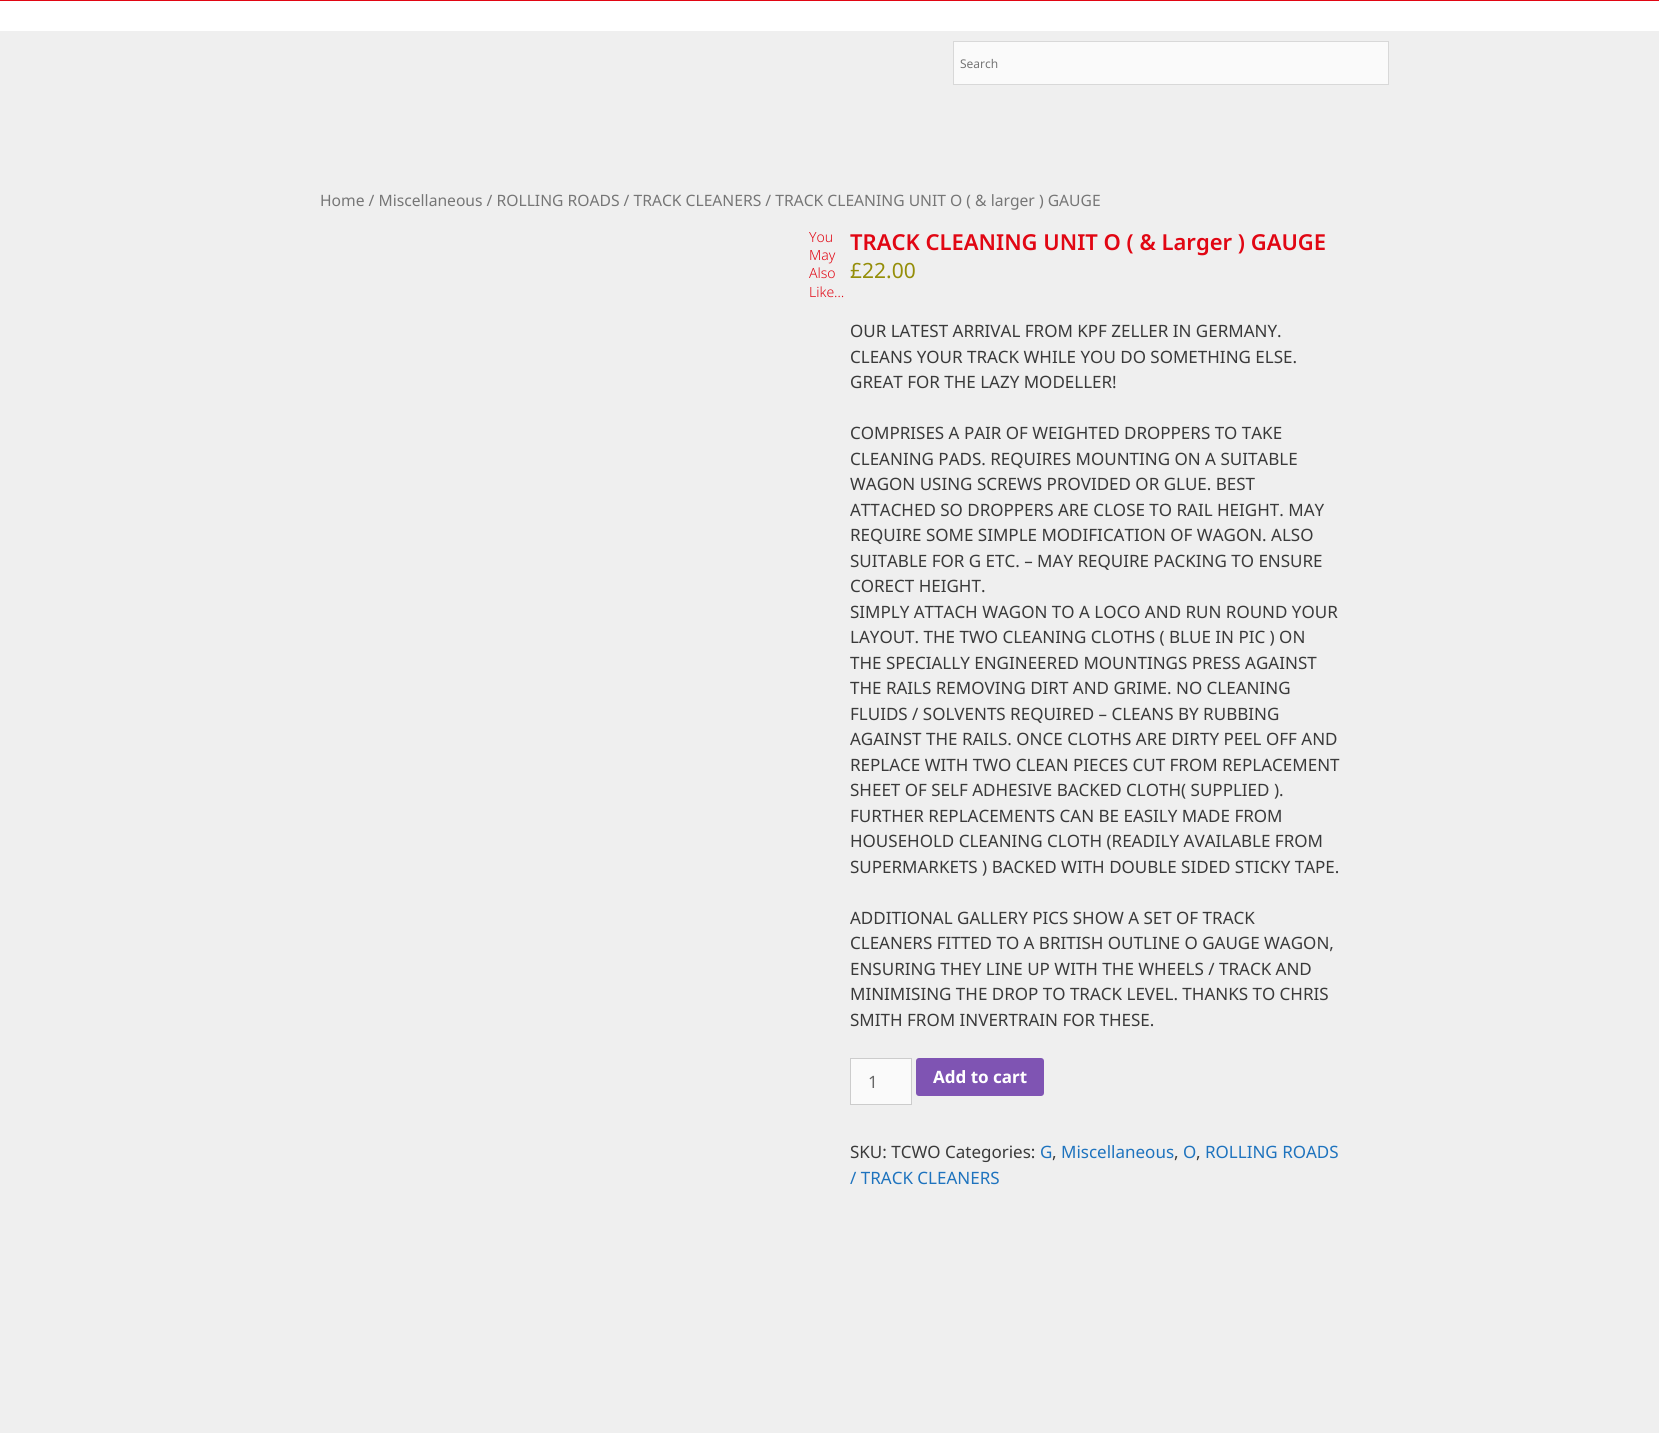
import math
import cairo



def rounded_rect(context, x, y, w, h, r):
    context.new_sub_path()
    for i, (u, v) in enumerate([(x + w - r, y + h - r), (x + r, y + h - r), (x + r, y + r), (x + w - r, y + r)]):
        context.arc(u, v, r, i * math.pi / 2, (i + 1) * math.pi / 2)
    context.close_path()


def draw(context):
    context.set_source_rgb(239 / 255, 239 / 255, 239 / 255)
    context.paint()
    context.set_source_rgb(225 / 255, 6 / 255, 19 / 255)
    context.rectangle(0, 0, 1659, 1)
    context.fill()
    context.set_source_rgb(1, 1, 1)
    context.rectangle(0, 1, 1659, 30)
    context.fill()
    context.set_source_rgb(250 / 255, 250 / 255, 250 / 255)
    context.rectangle(953.5, 41.5, 435, 43)
    context.fill_preserve()
    context.set_source_rgb(216 / 255, 216 / 255, 216 / 255)
    context.set_line_width(1)
    context.stroke()
    context.set_source_rgb(250 / 255, 250 / 255, 250 / 255)
    context.rectangle(850.5, 1058.5, 61, 46)
    context.fill_preserve()
    context.set_source_rgb(204 / 255, 204 / 255, 204 / 255)
    context.stroke()
    context.set_source_rgb(127 / 255, 84 / 255, 179 / 255)
    rounded_rect(context, 916, 1058, 128, 38, 3)
    context.fill()
    context.select_font_face("Noto Sans")
    context.set_font_size(12)
    context.set_source_rgb(118 / 255, 118 / 255, 118 / 255)
    context.move_to(960, 68)
    context.show_text("Search")
    context.set_font_size(15.65)
    context.move_to(320, 206)
    context.show_text("Home / Miscellaneous / ROLLING ROADS / TRACK CLEANERS / TRACK CLEANING UNIT O ( & larger ) GAUGE")
    context.select_font_face("Noto Sans Light")
    context.set_font_size(14)
    context.set_source_rgb(225 / 255, 6 / 255, 19 / 255)
    context.move_to(809, 242)
    context.show_text("You")
    context.move_to(809, 260)
    context.show_text("May")
    context.move_to(809, 278)
    context.show_text("Also")
    context.move_to(809, 297)
    context.show_text("Like…")
    context.select_font_face("Noto Sans SemiBold")
    context.set_font_size(22)
    context.move_to(850, 250)
    context.show_text("TRACK CLEANING UNIT O ( & Larger ) GAUGE")
    context.select_font_face("Noto Sans")
    context.set_font_size(21)
    context.set_source_rgb(149 / 255, 142 / 255, 9 / 255)
    context.move_to(850, 278)
    context.show_text("£22.00")
    context.set_font_size(17)
    context.set_source_rgb(58 / 255, 58 / 255, 58 / 255)
    context.move_to(850, 337)
    context.show_text("OUR LATEST ARRIVAL FROM KPF ZELLER IN GERMANY.")
    context.move_to(850, 363)
    context.show_text("CLEANS YOUR TRACK WHILE YOU DO SOMETHING ELSE.")
    context.move_to(850, 388)
    context.show_text("GREAT FOR THE LAZY MODELLER!")
    context.move_to(850, 439)
    context.show_text("COMPRISES A PAIR OF WEIGHTED DROPPERS TO TAKE")
    context.move_to(850, 465)
    context.show_text("CLEANING PADS. REQUIRES MOUNTING ON A SUITABLE")
    context.move_to(850, 490)
    context.show_text("WAGON USING SCREWS PROVIDED OR GLUE. BEST")
    context.move_to(850, 516)
    context.show_text("ATTACHED SO DROPPERS ARE CLOSE TO RAIL HEIGHT. MAY")
    context.move_to(850, 541)
    context.show_text("REQUIRE SOME SIMPLE MODIFICATION OF WAGON. ALSO")
    context.move_to(850, 567)
    context.show_text("SUITABLE FOR G ETC. – MAY REQUIRE PACKING TO ENSURE")
    context.move_to(850, 592)
    context.show_text("CORECT HEIGHT.")
    context.move_to(850, 618)
    context.show_text("SIMPLY ATTACH WAGON TO A LOCO AND RUN ROUND YOUR")
    context.move_to(850, 643)
    context.show_text("LAYOUT. THE TWO CLEANING CLOTHS ( BLUE IN PIC ) ON")
    context.move_to(850, 669)
    context.show_text("THE SPECIALLY ENGINEERED MOUNTINGS PRESS AGAINST")
    context.move_to(850, 694)
    context.show_text("THE RAILS REMOVING DIRT AND GRIME. NO CLEANING")
    context.move_to(850, 720)
    context.show_text("FLUIDS / SOLVENTS REQUIRED – CLEANS BY RUBBING")
    context.move_to(850, 745)
    context.show_text("AGAINST THE RAILS. ONCE CLOTHS ARE DIRTY PEEL OFF AND")
    context.move_to(850, 771)
    context.show_text("REPLACE WITH TWO CLEAN PIECES CUT FROM REPLACEMENT")
    context.move_to(850, 796)
    context.show_text("SHEET OF SELF ADHESIVE BACKED CLOTH( SUPPLIED ).")
    context.move_to(850, 822)
    context.show_text("FURTHER REPLACEMENTS CAN BE EASILY MADE FROM")
    context.move_to(850, 847)
    context.show_text("HOUSEHOLD CLEANING CLOTH (READILY AVAILABLE FROM")
    context.move_to(850, 873)
    context.show_text("SUPERMARKETS ) BACKED WITH DOUBLE SIDED STICKY TAPE.")
    context.move_to(850, 924)
    context.show_text("ADDITIONAL GALLERY PICS SHOW A SET OF TRACK")
    context.move_to(850, 949)
    context.show_text("CLEANERS FITTED TO A BRITISH OUTLINE O GAUGE WAGON,")
    context.move_to(850, 975)
    context.show_text("ENSURING THEY LINE UP WITH THE WHEELS / TRACK AND")
    context.move_to(850, 1000)
    context.show_text("MINIMISING THE DROP TO TRACK LEVEL. THANKS TO CHRIS")
    context.move_to(850, 1026)
    context.show_text("SMITH FROM INVERTRAIN FOR THESE.")
    context.set_source_rgb(102 / 255, 102 / 255, 102 / 255)
    context.move_to(868, 1088)
    context.show_text("1")
    context.select_font_face("Noto Sans", cairo.FontSlant.NORMAL, cairo.FontWeight.BOLD)
    context.set_source_rgb(1, 1, 1)
    context.move_to(933, 1083)
    context.show_text("Add to cart")
    context.select_font_face("Noto Sans")
    context.set_source_rgb(58 / 255, 58 / 255, 58 / 255)
    context.move_to(850, 1158)
    context.show_text("SKU: TCWO Categories:")
    context.set_source_rgb(30 / 255, 115 / 255, 190 / 255)
    context.move_to(1040, 1158)
    context.show_text("G")
    context.set_source_rgb(58 / 255, 58 / 255, 58 / 255)
    context.move_to(1052, 1158)
    context.show_text(",")
    context.set_source_rgb(30 / 255, 115 / 255, 190 / 255)
    context.move_to(1061, 1158)
    context.show_text("Miscellaneous")
    context.set_source_rgb(58 / 255, 58 / 255, 58 / 255)
    context.move_to(1174, 1158)
    context.show_text(",")
    context.set_source_rgb(30 / 255, 115 / 255, 190 / 255)
    context.move_to(1183, 1158)
    context.show_text("O")
    context.set_source_rgb(58 / 255, 58 / 255, 58 / 255)
    context.move_to(1196, 1158)
    context.show_text(",")
    context.set_source_rgb(30 / 255, 115 / 255, 190 / 255)
    context.move_to(1205, 1158)
    context.show_text("ROLLING ROADS")
    context.move_to(850, 1184)
    context.show_text("/ TRACK CLEANERS")


surface = cairo.ImageSurface(cairo.Format.RGB24, 1659, 1433)
context = cairo.Context(surface)
options = cairo.FontOptions()
options.set_hint_metrics(cairo.HintMetrics.OFF)
options.set_hint_style(cairo.HintStyle.NONE)
context.set_font_options(options)
context.set_miter_limit(4)
draw(context)
surface.write_to_png("out.png")
